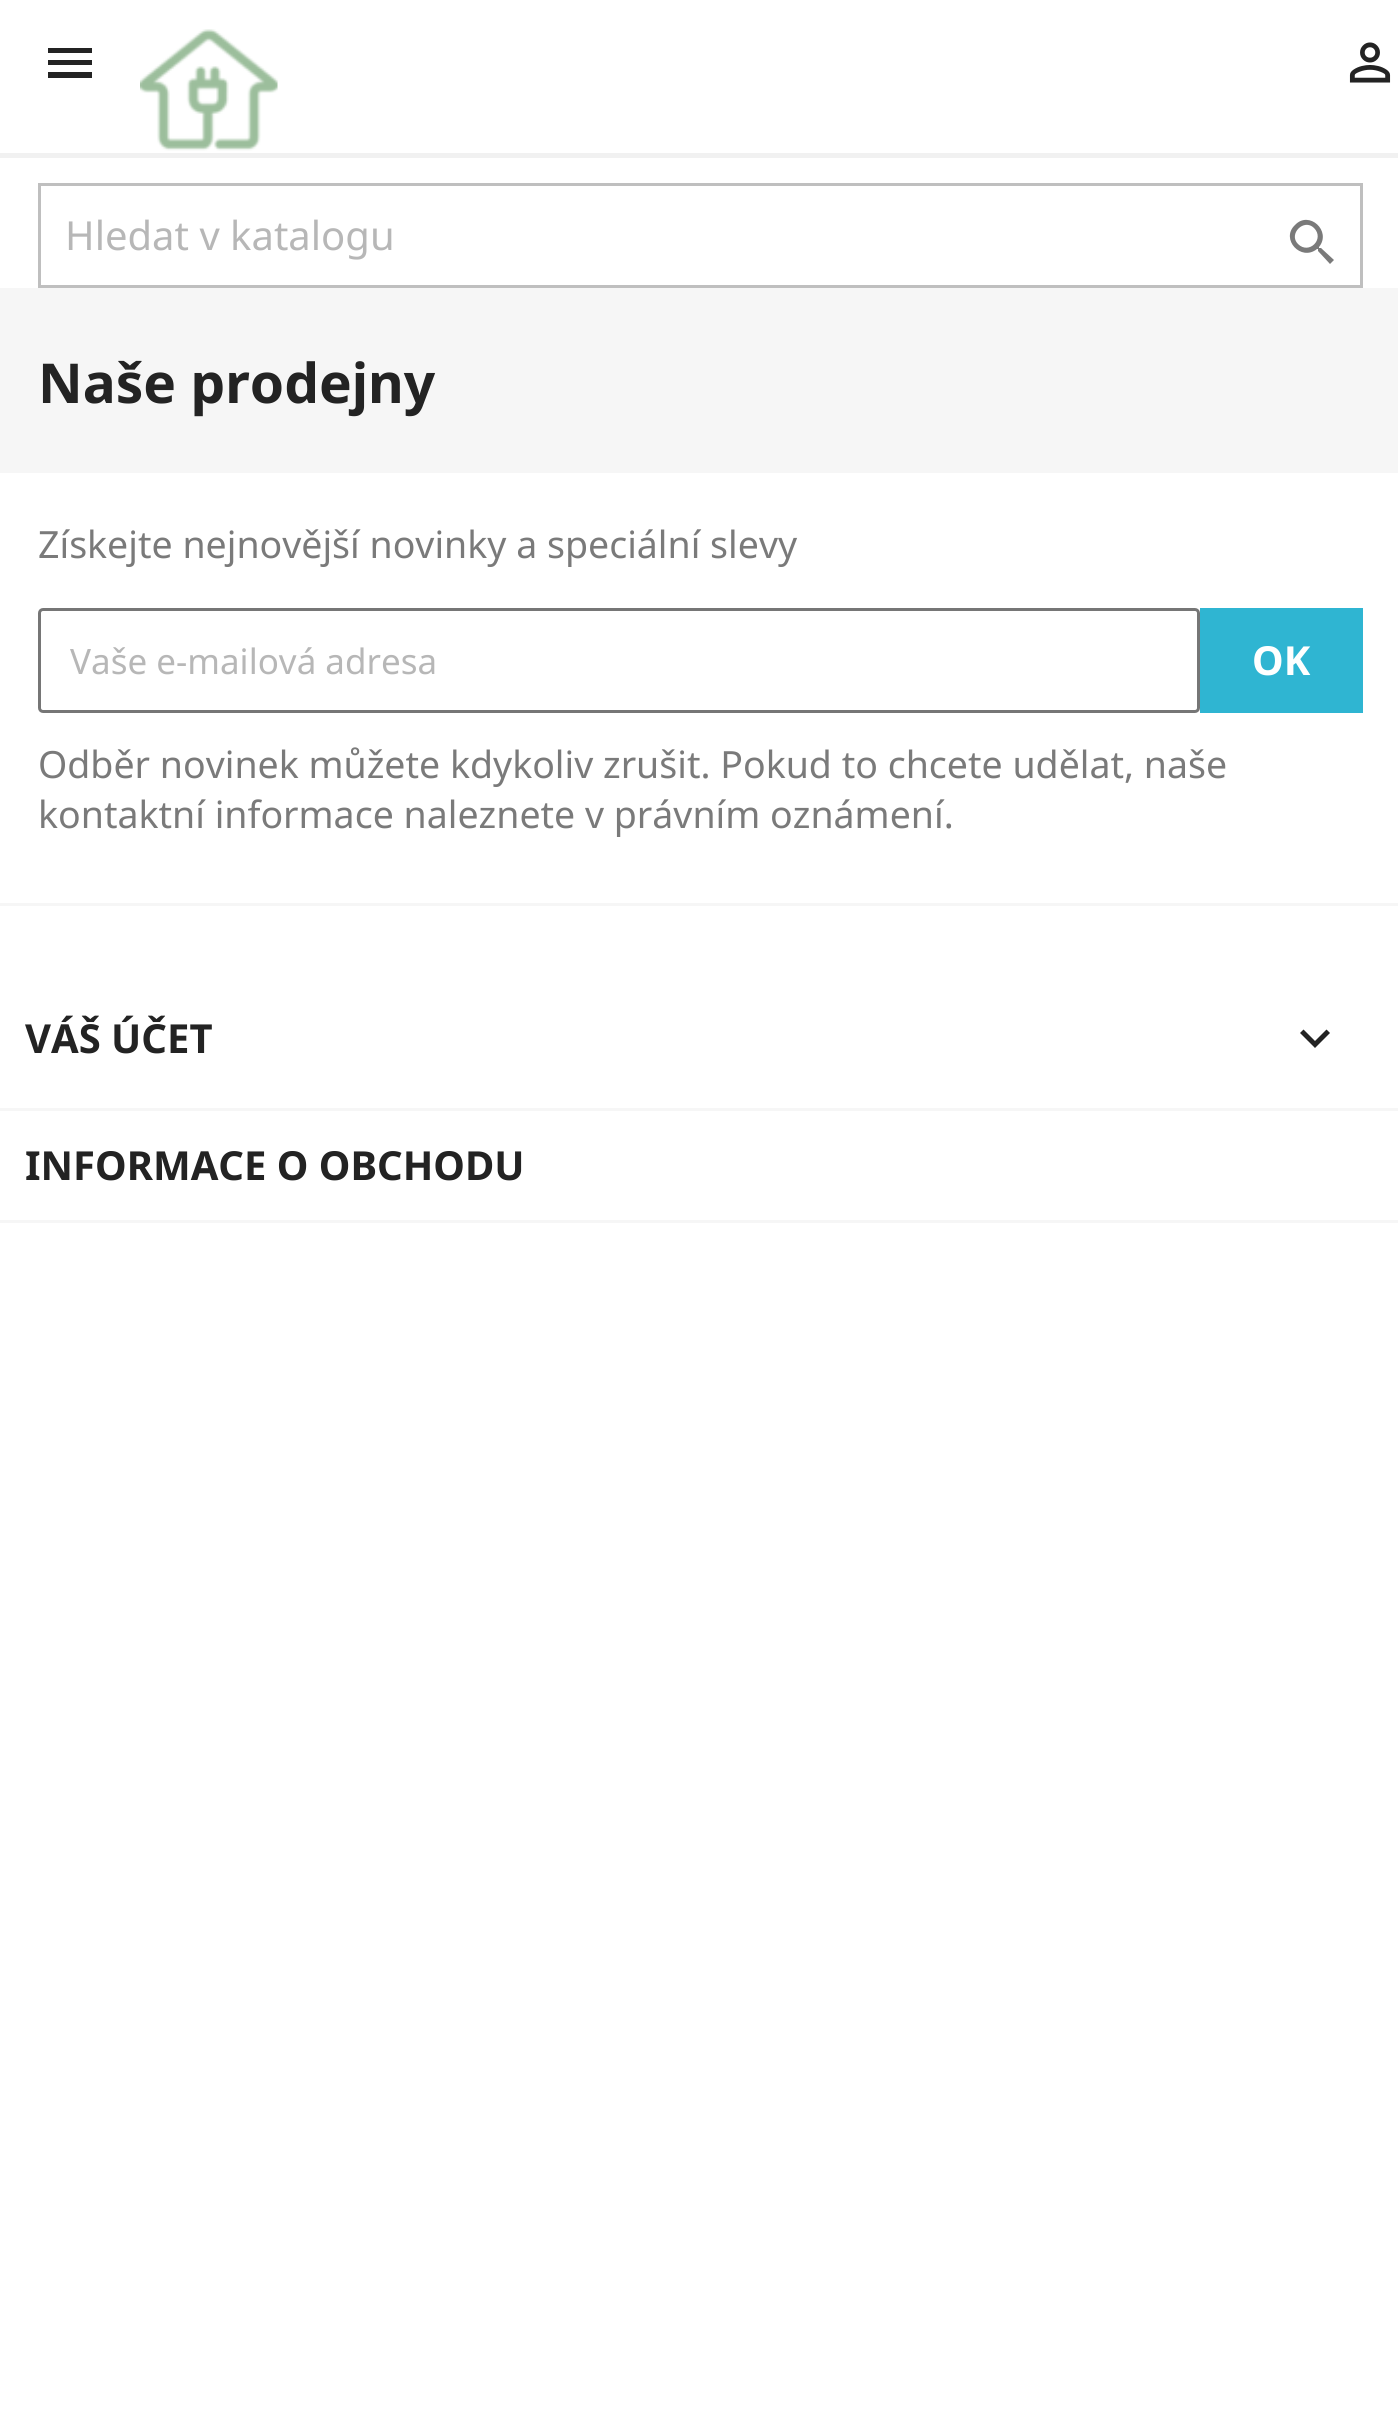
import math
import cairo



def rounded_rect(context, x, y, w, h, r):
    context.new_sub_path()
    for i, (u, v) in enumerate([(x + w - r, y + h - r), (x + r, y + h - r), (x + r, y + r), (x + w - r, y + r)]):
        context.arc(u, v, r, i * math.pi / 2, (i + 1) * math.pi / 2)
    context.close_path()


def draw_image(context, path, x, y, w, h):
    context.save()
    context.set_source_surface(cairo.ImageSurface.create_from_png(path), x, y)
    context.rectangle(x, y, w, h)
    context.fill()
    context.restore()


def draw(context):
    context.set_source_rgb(1, 1, 1)
    context.paint()
    context.set_source_rgb(241 / 255, 241 / 255, 241 / 255)
    context.rectangle(0, 153, 1398, 5)
    context.fill()
    context.set_source_rgb(35 / 255, 35 / 255, 35 / 255)
    context.new_path()
    context.move_to(48, 48)
    context.line_to(92, 48)
    context.line_to(92, 53)
    context.line_to(48, 53)
    context.close_path()
    context.move_to(48, 65)
    context.line_to(48, 60)
    context.line_to(92, 60)
    context.line_to(92, 65)
    context.close_path()
    context.move_to(48, 78)
    context.line_to(48, 72)
    context.line_to(92, 72)
    context.line_to(92, 78)
    context.close_path()
    context.fill()
    draw_image(context, "images/1.png", 140, 29, 138, 122)
    draw_image(context, "images/2.png", 1349, 42, 42, 41)
    context.rectangle(39.5, 184.5, 1322, 102)
    context.set_source_rgb(191 / 255, 191 / 255, 191 / 255)
    context.set_line_width(3)
    context.stroke()
    context.set_source_rgb(122 / 255, 122 / 255, 122 / 255)
    context.new_path()
    context.move_to(1298, 244)
    context.curve_to(1309, 255, 1325, 239, 1314, 228)
    context.curve_to(1304, 218, 1288, 234, 1298, 244)
    context.close_path()
    context.move_to(1321, 248)
    context.line_to(1334, 260)
    context.line_to(1330, 264)
    context.line_to(1318, 251)
    context.line_to(1318, 249)
    context.line_to(1317, 249)
    context.curve_to(1301, 262, 1280, 239, 1295, 225)
    context.curve_to(1309, 210, 1332, 231, 1319, 247)
    context.line_to(1319, 248)
    context.close_path()
    context.fill()
    context.set_source_rgb(246 / 255, 246 / 255, 246 / 255)
    context.rectangle(0, 288, 1398, 185)
    context.fill()
    context.rectangle(0, 903, 1398, 3)
    context.fill()
    rounded_rect(context, 39.5, 609.5, 1159, 102, 3.5)
    context.set_source_rgb(118 / 255, 118 / 255, 118 / 255)
    context.stroke()
    context.set_source_rgb(47 / 255, 181 / 255, 210 / 255)
    context.rectangle(1200, 608, 163, 105)
    context.fill()
    context.set_source_rgb(246 / 255, 246 / 255, 246 / 255)
    context.rectangle(0, 1108, 1398, 3)
    context.fill()
    context.set_source_rgb(35 / 255, 35 / 255, 35 / 255)
    context.new_path()
    context.move_to(1303.5, 1029.5)
    context.line_to(1315, 1041)
    context.line_to(1326.5, 1029.5)
    context.line_to(1330, 1033)
    context.line_to(1315, 1048)
    context.line_to(1300, 1033)
    context.close_path()
    context.fill()
    context.set_source_rgb(246 / 255, 246 / 255, 246 / 255)
    context.rectangle(0, 1220, 1398, 3)
    context.fill()
    context.select_font_face("Noto Sans")
    context.set_font_size(40)
    context.set_source_rgb(183 / 255, 183 / 255, 183 / 255)
    context.move_to(65, 250)
    context.show_text("Hledat v katalogu")
    context.select_font_face("Noto Sans", cairo.FontSlant.NORMAL, cairo.FontWeight.BOLD)
    context.set_font_size(55)
    context.set_source_rgb(35 / 255, 35 / 255, 35 / 255)
    context.move_to(38, 403)
    context.show_text("Naše prodejny")
    context.select_font_face("Noto Sans")
    context.set_font_size(37.5)
    context.set_source_rgb(122 / 255, 122 / 255, 122 / 255)
    context.move_to(38, 558)
    context.show_text("Získejte nejnovější novinky a speciální slevy")
    context.set_font_size(35)
    context.set_source_rgb(183 / 255, 183 / 255, 183 / 255)
    context.move_to(70, 674)
    context.show_text("Vaše e-mailová adresa")
    context.select_font_face("Noto Sans", cairo.FontSlant.NORMAL, cairo.FontWeight.BOLD)
    context.set_font_size(40)
    context.set_source_rgb(1, 1, 1)
    context.move_to(1252, 675)
    context.show_text("OK")
    context.select_font_face("Noto Sans")
    context.set_font_size(37.5)
    context.set_source_rgb(122 / 255, 122 / 255, 122 / 255)
    context.move_to(38, 778)
    context.show_text("Odběr novinek můžete kdykoliv zrušit. Pokud to chcete udělat, naše")
    context.move_to(38, 828)
    context.show_text("kontaktní informace naleznete v právním oznámení.")
    context.select_font_face("Noto Sans", cairo.FontSlant.NORMAL, cairo.FontWeight.BOLD)
    context.set_font_size(40)
    context.set_source_rgb(35 / 255, 35 / 255, 35 / 255)
    context.move_to(25, 1053)
    context.show_text("VÁŠ ÚČET")
    context.move_to(25, 1180)
    context.show_text("INFORMACE O OBCHODU")


surface = cairo.ImageSurface(cairo.Format.RGB24, 1398, 2416)
context = cairo.Context(surface)
options = cairo.FontOptions()
options.set_hint_metrics(cairo.HintMetrics.OFF)
options.set_hint_style(cairo.HintStyle.NONE)
context.set_font_options(options)
context.set_miter_limit(4)
draw(context)
surface.write_to_png("out.png")
